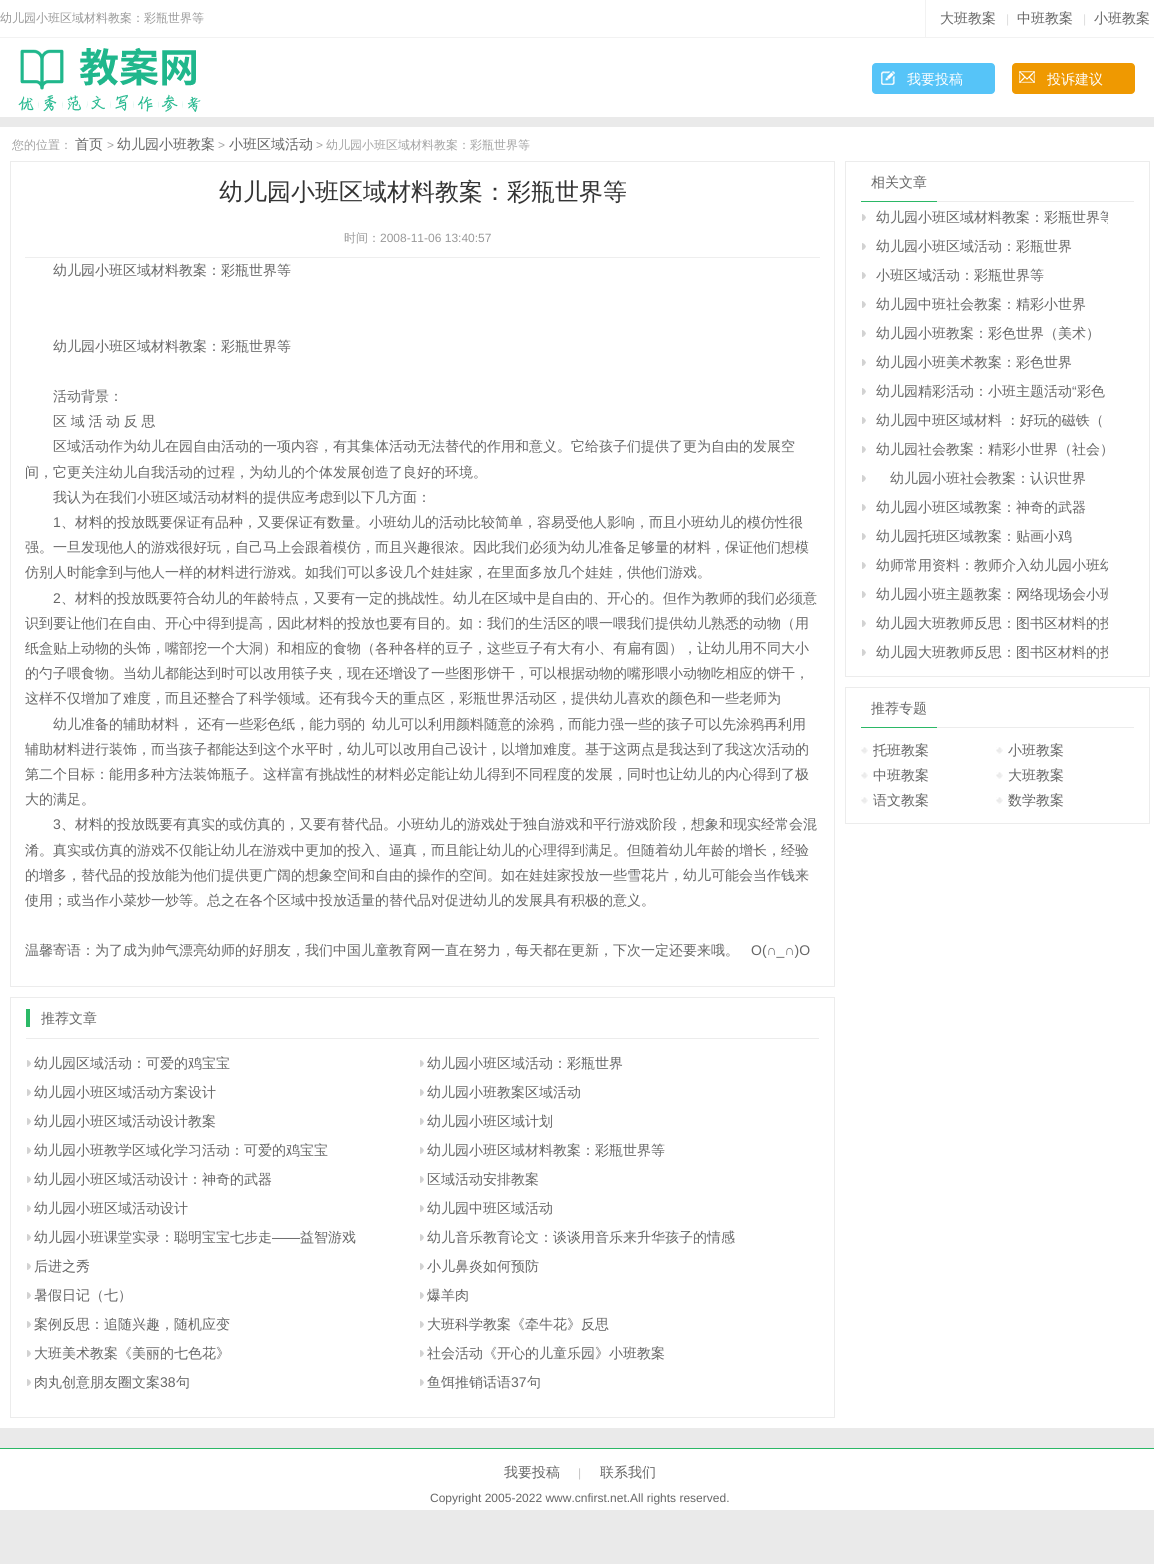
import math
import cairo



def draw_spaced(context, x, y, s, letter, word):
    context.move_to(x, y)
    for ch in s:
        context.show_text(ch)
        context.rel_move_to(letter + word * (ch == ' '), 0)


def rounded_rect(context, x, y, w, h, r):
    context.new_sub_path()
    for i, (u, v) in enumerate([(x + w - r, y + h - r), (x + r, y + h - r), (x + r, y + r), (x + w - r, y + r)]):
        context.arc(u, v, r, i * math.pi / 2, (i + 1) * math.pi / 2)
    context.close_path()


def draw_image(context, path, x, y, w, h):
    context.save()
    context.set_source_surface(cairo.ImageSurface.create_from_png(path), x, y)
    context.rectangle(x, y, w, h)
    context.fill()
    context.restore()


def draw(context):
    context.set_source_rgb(234 / 255, 234 / 255, 234 / 255)
    context.paint()
    context.set_source_rgb(1, 1, 1)
    context.rectangle(0, 0, 1154, 37)
    context.fill()
    context.set_source_rgb(242 / 255, 242 / 255, 242 / 255)
    context.rectangle(0, 37, 1154, 1)
    context.fill()
    context.rectangle(925, 0, 1, 37)
    context.fill()
    context.set_source_rgb(1, 1, 1)
    context.rectangle(0, 38, 1154, 79)
    context.fill()
    draw_image(context, "images/1.png", 18, 47, 183, 65)
    context.set_source_rgb(86 / 255, 196 / 255, 248 / 255)
    rounded_rect(context, 872, 63, 123, 31, 4)
    context.fill()
    draw_image(context, "images/2.png", 881, 71, 14, 14)
    context.set_source_rgb(239 / 255, 153 / 255, 1 / 255)
    rounded_rect(context, 1012, 63, 123, 31, 4)
    context.fill()
    draw_image(context, "images/3.png", 1019, 71, 16, 12)
    context.set_source_rgb(1, 1, 1)
    context.rectangle(0, 127, 1154, 1301)
    context.fill()
    context.rectangle(10.5, 161.5, 824, 825)
    context.set_source_rgb(236 / 255, 236 / 255, 236 / 255)
    context.set_line_width(1)
    context.stroke()
    context.set_source_rgb(238 / 255, 238 / 255, 238 / 255)
    context.rectangle(25, 257, 795, 1)
    context.fill()
    context.rectangle(10.5, 997.5, 824, 420)
    context.set_source_rgb(236 / 255, 236 / 255, 236 / 255)
    context.stroke()
    context.set_source_rgb(43 / 255, 185 / 255, 103 / 255)
    context.rectangle(26, 1009, 4, 18)
    context.fill()
    context.set_source_rgb(236 / 255, 236 / 255, 236 / 255)
    context.rectangle(26, 1038, 793, 1)
    context.fill()
    draw_image(context, "images/4.png", 27, 1060, 4, 7)
    draw_image(context, "images/4.png", 420, 1060, 4, 7)
    draw_image(context, "images/4.png", 27, 1089, 4, 7)
    draw_image(context, "images/4.png", 420, 1089, 4, 7)
    draw_image(context, "images/4.png", 27, 1118, 4, 7)
    draw_image(context, "images/4.png", 420, 1118, 4, 7)
    draw_image(context, "images/4.png", 27, 1147, 4, 7)
    draw_image(context, "images/4.png", 420, 1147, 4, 7)
    draw_image(context, "images/4.png", 27, 1176, 4, 7)
    draw_image(context, "images/4.png", 420, 1176, 4, 7)
    draw_image(context, "images/4.png", 27, 1205, 4, 7)
    draw_image(context, "images/4.png", 420, 1205, 4, 7)
    draw_image(context, "images/4.png", 27, 1234, 4, 7)
    draw_image(context, "images/4.png", 420, 1234, 4, 7)
    draw_image(context, "images/4.png", 27, 1263, 4, 7)
    draw_image(context, "images/4.png", 420, 1263, 4, 7)
    draw_image(context, "images/4.png", 27, 1292, 4, 7)
    draw_image(context, "images/4.png", 420, 1292, 4, 7)
    draw_image(context, "images/4.png", 27, 1321, 4, 7)
    draw_image(context, "images/4.png", 420, 1321, 4, 7)
    draw_image(context, "images/4.png", 27, 1350, 4, 7)
    draw_image(context, "images/4.png", 420, 1350, 4, 7)
    draw_image(context, "images/4.png", 27, 1379, 4, 7)
    draw_image(context, "images/4.png", 420, 1379, 4, 7)
    context.rectangle(845.5, 161.5, 304, 515)
    context.stroke()
    context.rectangle(937, 201, 197, 1)
    context.fill()
    context.set_source_rgb(43 / 255, 184 / 255, 102 / 255)
    context.rectangle(861, 201, 76, 1)
    context.fill()
    draw_image(context, "images/4.png", 862, 214, 4, 7)
    draw_image(context, "images/4.png", 862, 243, 4, 7)
    draw_image(context, "images/4.png", 862, 272, 4, 7)
    draw_image(context, "images/4.png", 862, 301, 4, 7)
    draw_image(context, "images/4.png", 862, 330, 4, 7)
    draw_image(context, "images/4.png", 862, 359, 4, 7)
    draw_image(context, "images/4.png", 862, 388, 4, 7)
    draw_image(context, "images/4.png", 862, 417, 4, 7)
    draw_image(context, "images/4.png", 862, 446, 4, 7)
    draw_image(context, "images/4.png", 862, 475, 4, 7)
    draw_image(context, "images/4.png", 862, 504, 4, 7)
    draw_image(context, "images/4.png", 862, 533, 4, 7)
    draw_image(context, "images/4.png", 862, 562, 4, 7)
    draw_image(context, "images/4.png", 862, 591, 4, 7)
    draw_image(context, "images/4.png", 862, 620, 4, 7)
    draw_image(context, "images/4.png", 862, 649, 4, 7)
    context.rectangle(845.5, 687.5, 304, 136)
    context.set_source_rgb(236 / 255, 236 / 255, 236 / 255)
    context.stroke()
    context.rectangle(937, 727, 197, 1)
    context.fill()
    context.set_source_rgb(43 / 255, 184 / 255, 102 / 255)
    context.rectangle(861, 727, 76, 1)
    context.fill()
    draw_image(context, "images/5.png", 861, 747, 7, 7)
    draw_image(context, "images/5.png", 996, 747, 7, 7)
    draw_image(context, "images/5.png", 861, 772, 7, 7)
    draw_image(context, "images/5.png", 996, 772, 7, 7)
    draw_image(context, "images/5.png", 861, 797, 7, 7)
    draw_image(context, "images/5.png", 996, 797, 7, 7)
    context.rectangle(0, 1448, 1154, 1)
    context.fill()
    context.set_source_rgb(1, 1, 1)
    context.rectangle(0, 1449, 1154, 61)
    context.fill()
    context.select_font_face("WenQuanYi Zen Hei Medium")
    context.set_font_size(12)
    context.set_source_rgb(153 / 255, 153 / 255, 153 / 255)
    context.move_to(0, 22)
    context.show_text("幼儿园小班区域材料教案：彩瓶世界等")
    context.set_font_size(14)
    context.set_source_rgb(102 / 255, 102 / 255, 102 / 255)
    context.move_to(940, 23)
    context.show_text("大班教案")
    context.select_font_face("Liberation Sans")
    context.set_font_size(12)
    context.set_source_rgb(221 / 255, 221 / 255, 221 / 255)
    context.move_to(1006, 23)
    context.show_text("|")
    context.select_font_face("WenQuanYi Zen Hei Medium")
    context.set_font_size(14)
    context.set_source_rgb(102 / 255, 102 / 255, 102 / 255)
    context.move_to(1017, 23)
    context.show_text("中班教案")
    context.select_font_face("Liberation Sans")
    context.set_font_size(12)
    context.set_source_rgb(221 / 255, 221 / 255, 221 / 255)
    context.move_to(1083, 23)
    context.show_text("|")
    context.select_font_face("WenQuanYi Zen Hei Medium")
    context.set_font_size(14)
    context.set_source_rgb(102 / 255, 102 / 255, 102 / 255)
    context.move_to(1094, 23)
    context.show_text("小班教案")
    context.set_source_rgb(1, 1, 1)
    context.move_to(907, 84)
    context.show_text("我要投稿")
    context.move_to(1047, 84)
    context.show_text("投诉建议")
    context.set_font_size(12)
    context.set_source_rgb(163 / 255, 163 / 255, 163 / 255)
    context.move_to(12, 149)
    context.show_text("您的位置：")
    context.set_font_size(14)
    context.set_source_rgb(102 / 255, 102 / 255, 102 / 255)
    context.move_to(75, 149)
    context.show_text("首页")
    context.select_font_face("Liberation Sans")
    context.set_font_size(12)
    context.set_source_rgb(163 / 255, 163 / 255, 163 / 255)
    context.move_to(107, 149)
    context.show_text(">")
    context.select_font_face("WenQuanYi Zen Hei Medium")
    context.set_font_size(14)
    context.set_source_rgb(102 / 255, 102 / 255, 102 / 255)
    context.move_to(117, 149)
    context.show_text("幼儿园小班教案")
    context.select_font_face("Liberation Sans")
    context.set_font_size(12)
    context.set_source_rgb(163 / 255, 163 / 255, 163 / 255)
    context.move_to(218, 149)
    context.show_text(">")
    context.select_font_face("WenQuanYi Zen Hei Medium")
    context.set_font_size(14)
    context.set_source_rgb(102 / 255, 102 / 255, 102 / 255)
    context.move_to(229, 149)
    context.show_text("小班区域活动")
    context.select_font_face("Liberation Sans")
    context.set_font_size(12)
    context.set_source_rgb(163 / 255, 163 / 255, 163 / 255)
    context.move_to(316, 149)
    context.show_text(">")
    context.select_font_face("WenQuanYi Zen Hei Medium")
    context.move_to(326, 149)
    context.show_text("幼儿园小班区域材料教案：彩瓶世界等")
    context.set_font_size(24)
    context.set_source_rgb(51 / 255, 51 / 255, 51 / 255)
    context.move_to(219, 200)
    context.show_text("幼儿园小班区域材料教案：彩瓶世界等")
    context.set_font_size(12)
    context.set_source_rgb(153 / 255, 153 / 255, 153 / 255)
    context.move_to(344, 242)
    context.show_text("时间：")
    context.select_font_face("Liberation Sans")
    context.move_to(380, 242)
    context.show_text("2008-11-06 13:40:57")
    context.select_font_face("WenQuanYi Zen Hei Medium")
    context.set_font_size(14)
    context.set_source_rgb(102 / 255, 102 / 255, 102 / 255)
    context.move_to(53, 275)
    context.show_text("幼儿园小班区域材料教案：彩瓶世界等")
    context.move_to(53, 351)
    context.show_text("幼儿园小班区域材料教案：彩瓶世界等")
    context.move_to(53, 401)
    context.show_text("活动背景：")
    draw_spaced(context, 53, 426, "区 域 活 动 反 思", 0, -0.5)
    context.move_to(53, 451)
    context.show_text("区域活动作为幼儿在园自由活动的一项内容，有其集体活动无法替代的作用和意义。它给孩子们提供了更为自由的发展空")
    context.move_to(25, 477)
    context.show_text("间，它更关注幼儿自我活动的过程，为幼儿的个体发展创造了良好的环境。")
    context.move_to(53, 502)
    context.show_text("我认为在我们小班区域活动材料的提供应考虑到以下几方面：")
    context.select_font_face("Liberation Sans")
    context.move_to(53, 527)
    context.show_text("1")
    context.select_font_face("WenQuanYi Zen Hei Medium")
    context.move_to(61, 527)
    context.show_text("、材料的投放既要保证有品种，又要保证有数量。小班幼儿的活动比较简单，容易受他人影响，而且小班幼儿的模仿性很")
    context.move_to(25, 552)
    context.show_text("强。一旦发现他人的游戏很好玩，自己马上会跟着模仿，而且兴趣很浓。因此我们必须为幼儿准备足够量的材料，保证他们想模")
    context.move_to(25, 577)
    context.show_text("仿别人时能拿到与他人一样的材料进行游戏。如我们可以多设几个娃娃家，在里面多放几个娃娃，供他们游戏。")
    context.select_font_face("Liberation Sans")
    context.move_to(53, 603)
    context.show_text("2")
    context.select_font_face("WenQuanYi Zen Hei Medium")
    context.move_to(61, 603)
    context.show_text("、材料的投放既要符合幼儿的年龄特点，又要有一定的挑战性。幼儿在区域中是自由的、开心的。但作为教师的我们必须意")
    context.move_to(25, 628)
    context.show_text("识到要让他们在自由、开心中得到提高，因此材料的投放也要有目的。如：我们的生活区的喂一喂我们提供幼儿熟悉的动物（用")
    context.move_to(25, 653)
    context.show_text("纸盒贴上动物的头饰，嘴部挖一个大洞）和相应的食物（各种各样的豆子，这些豆子有大有小、有扁有圆），让幼儿用不同大小")
    context.move_to(25, 678)
    context.show_text("的勺子喂食物。当幼儿都能达到时可以改用筷子夹，现在还增设了一些图形饼干，可以根据动物的嘴形喂小动物吃相应的饼干，")
    context.move_to(25, 703)
    context.show_text("这样不仅增加了难度，而且还整合了科学领域。还有我今天的重点区，彩瓶世界活动区，提供幼儿喜欢的颜色和一些老师为")
    context.move_to(53, 729)
    context.show_text("幼儿准备的辅助材料， 还有一些彩色纸，能力弱的")
    context.move_to(372, 729)
    context.show_text("幼儿可以利用颜料随意的涂鸦，而能力强一些的孩子可以先涂鸦再利用")
    context.move_to(25, 754)
    context.show_text("辅助材料进行装饰，而当孩子都能达到这个水平时，幼儿可以改用自己设计，以增加难度。基于这两点是我达到了我这次活动的")
    context.move_to(25, 779)
    context.show_text("第二个目标：能用多种方法装饰瓶子。这样富有挑战性的材料必定能让幼儿得到不同程度的发展，同时也让幼儿的内心得到了极")
    context.move_to(25, 804)
    context.show_text("大的满足。")
    context.select_font_face("Liberation Sans")
    context.move_to(53, 829)
    context.show_text("3")
    context.select_font_face("WenQuanYi Zen Hei Medium")
    context.move_to(61, 829)
    context.show_text("、材料的投放既要有真实的或仿真的，又要有替代品。小班幼儿的游戏处于独自游戏和平行游戏阶段，想象和现实经常会混")
    context.move_to(25, 855)
    context.show_text("淆。真实或仿真的游戏不仅能让幼儿在游戏中更加的投入、逼真，而且能让幼儿的心理得到满足。但随着幼儿年龄的增长，经验")
    context.move_to(25, 880)
    context.show_text("的增多，替代品的投放能为他们提供更广阔的想象空间和自由的操作的空间。如在娃娃家投放一些雪花片，幼儿可能会当作钱来")
    context.move_to(25, 905)
    context.show_text("使用；或当作小菜炒一炒等。总之在各个区域中投放适量的替代品对促进幼儿的发展具有积极的意义。")
    context.move_to(25, 955)
    context.show_text("温馨寄语：为了成为帅气漂亮幼师的好朋友，我们中国儿童教育网一直在努力，每天都在更新，下次一定还要来哦。")
    context.select_font_face("Liberation Sans")
    context.move_to(751, 955)
    context.show_text("O(∩_∩)O")
    context.select_font_face("WenQuanYi Zen Hei Medium")
    context.move_to(41, 1023)
    context.show_text("推荐文章")
    context.move_to(34, 1068)
    context.show_text("幼儿园区域活动：可爱的鸡宝宝")
    context.move_to(427, 1068)
    context.show_text("幼儿园小班区域活动：彩瓶世界")
    context.move_to(34, 1097)
    context.show_text("幼儿园小班区域活动方案设计")
    context.move_to(427, 1097)
    context.show_text("幼儿园小班教案区域活动")
    context.move_to(34, 1126)
    context.show_text("幼儿园小班区域活动设计教案")
    context.move_to(427, 1126)
    context.show_text("幼儿园小班区域计划")
    context.move_to(34, 1155)
    context.show_text("幼儿园小班教学区域化学习活动：可爱的鸡宝宝")
    context.move_to(427, 1155)
    context.show_text("幼儿园小班区域材料教案：彩瓶世界等")
    context.move_to(34, 1184)
    context.show_text("幼儿园小班区域活动设计：神奇的武器")
    context.move_to(427, 1184)
    context.show_text("区域活动安排教案")
    context.move_to(34, 1213)
    context.show_text("幼儿园小班区域活动设计")
    context.move_to(427, 1213)
    context.show_text("幼儿园中班区域活动")
    context.move_to(34, 1242)
    context.show_text("幼儿园小班课堂实录：聪明宝宝七步走")
    context.select_font_face("Liberation Sans")
    context.move_to(272, 1242)
    context.show_text("——")
    context.select_font_face("WenQuanYi Zen Hei Medium")
    context.move_to(300, 1242)
    context.show_text("益智游戏")
    context.move_to(427, 1242)
    context.show_text("幼儿音乐教育论文：谈谈用音乐来升华孩子的情感")
    context.move_to(34, 1271)
    context.show_text("后进之秀")
    context.move_to(427, 1271)
    context.show_text("小儿鼻炎如何预防")
    context.move_to(34, 1300)
    context.show_text("暑假日记（七）")
    context.move_to(427, 1300)
    context.show_text("爆羊肉")
    context.move_to(34, 1329)
    context.show_text("案例反思：追随兴趣，随机应变")
    context.move_to(427, 1329)
    context.show_text("大班科学教案《牵牛花》反思")
    context.move_to(34, 1358)
    context.show_text("大班美术教案《美丽的七色花》")
    context.move_to(427, 1358)
    context.show_text("社会活动《开心的儿童乐园》小班教案")
    context.move_to(34, 1387)
    context.show_text("肉丸创意朋友圈文案")
    context.select_font_face("Liberation Sans")
    context.move_to(160, 1387)
    context.show_text("38")
    context.select_font_face("WenQuanYi Zen Hei Medium")
    context.move_to(176, 1387)
    context.show_text("句")
    context.move_to(427, 1387)
    context.show_text("鱼饵推销话语")
    context.select_font_face("Liberation Sans")
    context.move_to(511, 1387)
    context.show_text("37")
    context.select_font_face("WenQuanYi Zen Hei Medium")
    context.move_to(527, 1387)
    context.show_text("句")
    context.move_to(871, 187)
    context.show_text("相关文章")
    context.save()
    context.rectangle(876, 202, 232, 29)
    context.clip()
    context.move_to(876, 222)
    context.show_text("幼儿园小班区域材料教案：彩瓶世界等")
    context.restore()
    context.move_to(876, 251)
    context.show_text("幼儿园小班区域活动：彩瓶世界")
    context.move_to(876, 280)
    context.show_text("小班区域活动：彩瓶世界等")
    context.move_to(876, 309)
    context.show_text("幼儿园中班社会教案：精彩小世界")
    context.move_to(876, 338)
    context.show_text("幼儿园小班教案：彩色世界（美术）")
    context.move_to(876, 367)
    context.show_text("幼儿园小班美术教案：彩色世界")
    context.move_to(876, 396)
    context.show_text("幼儿园精彩活动：小班主题活动")
    context.select_font_face("Liberation Sans")
    context.move_to(1072, 396)
    context.show_text("“")
    context.select_font_face("WenQuanYi Zen Hei Medium")
    context.move_to(1077, 396)
    context.show_text("彩色")
    draw_spaced(context, 876, 425, "幼儿园中班区域材料 ：好玩的磁铁（", 0, -0.5)
    context.move_to(876, 454)
    context.show_text("幼儿园社会教案：精彩小世界（社会）")
    context.move_to(890, 483)
    context.show_text("幼儿园小班社会教案：认识世界")
    context.move_to(876, 512)
    context.show_text("幼儿园小班区域教案：神奇的武器")
    context.move_to(876, 541)
    context.show_text("幼儿园托班区域教案：贴画小鸡")
    context.save()
    context.rectangle(876, 550, 232, 29)
    context.clip()
    context.move_to(876, 570)
    context.show_text("幼师常用资料：教师介入幼儿园小班幼")
    context.restore()
    context.save()
    context.rectangle(876, 579, 232, 29)
    context.clip()
    context.move_to(876, 599)
    context.show_text("幼儿园小班主题教案：网络现场会小班")
    context.restore()
    context.save()
    context.rectangle(876, 608, 232, 29)
    context.clip()
    context.move_to(876, 628)
    context.show_text("幼儿园大班教师反思：图书区材料的投")
    context.restore()
    context.save()
    context.rectangle(876, 637, 232, 29)
    context.clip()
    context.move_to(876, 657)
    context.show_text("幼儿园大班教师反思：图书区材料的投")
    context.restore()
    context.move_to(871, 713)
    context.show_text("推荐专题")
    context.move_to(873, 755)
    context.show_text("托班教案")
    context.move_to(1008, 755)
    context.show_text("小班教案")
    context.move_to(873, 780)
    context.show_text("中班教案")
    context.move_to(1008, 780)
    context.show_text("大班教案")
    context.move_to(873, 805)
    context.show_text("语文教案")
    context.move_to(1008, 805)
    context.show_text("数学教案")
    context.move_to(504, 1477)
    context.show_text("我要投稿")
    context.select_font_face("Liberation Sans")
    context.set_font_size(12)
    context.set_source_rgb(197 / 255, 196 / 255, 196 / 255)
    context.move_to(578, 1477)
    context.show_text("|")
    context.select_font_face("WenQuanYi Zen Hei Medium")
    context.set_font_size(14)
    context.set_source_rgb(102 / 255, 102 / 255, 102 / 255)
    context.move_to(600, 1477)
    context.show_text("联系我们")
    context.select_font_face("Liberation Sans")
    context.set_font_size(12)
    context.move_to(430, 1502)
    context.show_text("Copyright 2005-2022 www.cnfirst.net.All rights reserved.")


surface = cairo.ImageSurface(cairo.Format.RGB24, 1154, 1564)
context = cairo.Context(surface)
options = cairo.FontOptions()
options.set_hint_metrics(cairo.HintMetrics.OFF)
options.set_hint_style(cairo.HintStyle.NONE)
context.set_font_options(options)
context.set_miter_limit(4)
draw(context)
surface.write_to_png("out.png")
